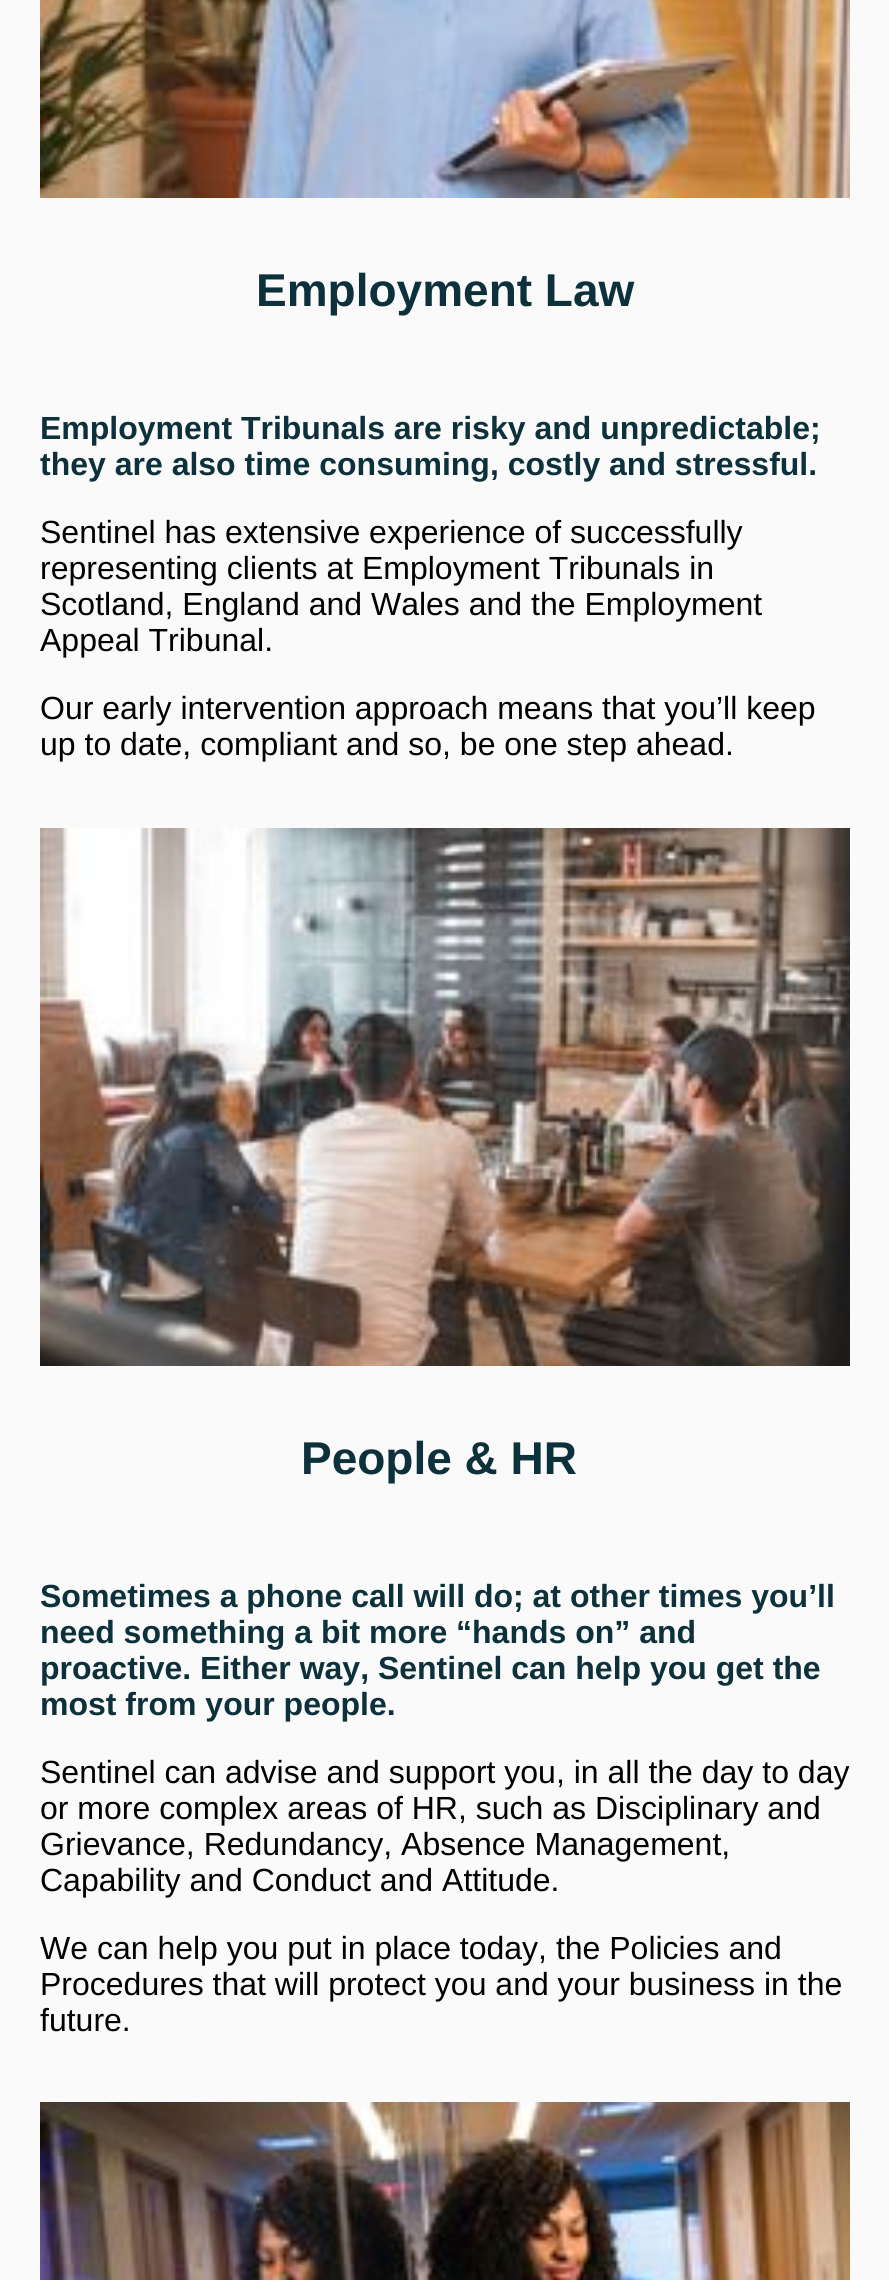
import math
import cairo



def draw_image(context, path, x, y, w, h):
    context.save()
    context.set_source_surface(cairo.ImageSurface.create_from_png(path), x, y)
    context.rectangle(x, y, w, h)
    context.fill()
    context.restore()


def draw(context):
    context.set_source_rgb(250 / 255, 250 / 255, 250 / 255)
    context.paint()
    draw_image(context, "images/1.png", 40, 0, 810, 198)
    draw_image(context, "images/2.png", 40, 828, 810, 538)
    draw_image(context, "images/3.png", 40, 2102, 810, 178)
    context.select_font_face("Liberation Sans", cairo.FontSlant.NORMAL, cairo.FontWeight.BOLD)
    context.set_font_size(46)
    context.set_source_rgb(13 / 255, 49 / 255, 59 / 255)
    context.move_to(256, 306)
    context.show_text("Employment Law")
    context.set_font_size(32)
    context.move_to(40, 439)
    context.show_text("Employment Tribunals are risky and unpredictable;")
    context.move_to(40, 475)
    context.show_text("they are also time consuming, costly and stressful.")
    context.select_font_face("Liberation Sans")
    context.set_source_rgb(0, 0, 0)
    context.move_to(40, 543)
    context.show_text("Sentinel has extensive experience of successfully")
    context.move_to(40, 579)
    context.show_text("representing clients at Employment Tribunals in")
    context.move_to(40, 615)
    context.show_text("Scotland, England and Wales and the Employment")
    context.move_to(40, 651)
    context.show_text("Appeal Tribunal.")
    context.move_to(40, 719)
    context.show_text("Our early intervention approach means that you’ll keep")
    context.move_to(40, 755)
    context.show_text("up to date, compliant and so, be one step ahead.")
    context.select_font_face("Liberation Sans", cairo.FontSlant.NORMAL, cairo.FontWeight.BOLD)
    context.set_font_size(46)
    context.set_source_rgb(13 / 255, 49 / 255, 59 / 255)
    context.move_to(301, 1474)
    context.show_text("People & HR")
    context.set_font_size(32)
    context.move_to(40, 1607)
    context.show_text("Sometimes a phone call will do; at other times you’ll")
    context.move_to(40, 1643)
    context.show_text("need something a bit more “hands on” and")
    context.move_to(40, 1679)
    context.show_text("proactive. Either way, Sentinel can help you get the")
    context.move_to(40, 1715)
    context.show_text("most from your people.")
    context.select_font_face("Liberation Sans")
    context.set_source_rgb(0, 0, 0)
    context.move_to(40, 1783)
    context.show_text("Sentinel can advise and support you, in all the day to day")
    context.move_to(40, 1819)
    context.show_text("or more complex areas of HR, such as Disciplinary and")
    context.move_to(40, 1855)
    context.show_text("Grievance, Redundancy, Absence Management,")
    context.move_to(40, 1891)
    context.show_text("Capability and Conduct and Attitude.")
    context.move_to(40, 1959)
    context.show_text("We can help you put in place today, the Policies and")
    context.move_to(40, 1995)
    context.show_text("Procedures that will protect you and your business in the")
    context.move_to(40, 2031)
    context.show_text("future.")


surface = cairo.ImageSurface(cairo.Format.RGB24, 889, 2280)
context = cairo.Context(surface)
options = cairo.FontOptions()
options.set_hint_metrics(cairo.HintMetrics.OFF)
options.set_hint_style(cairo.HintStyle.NONE)
context.set_font_options(options)
context.set_miter_limit(4)
draw(context)
surface.write_to_png("out.png")
